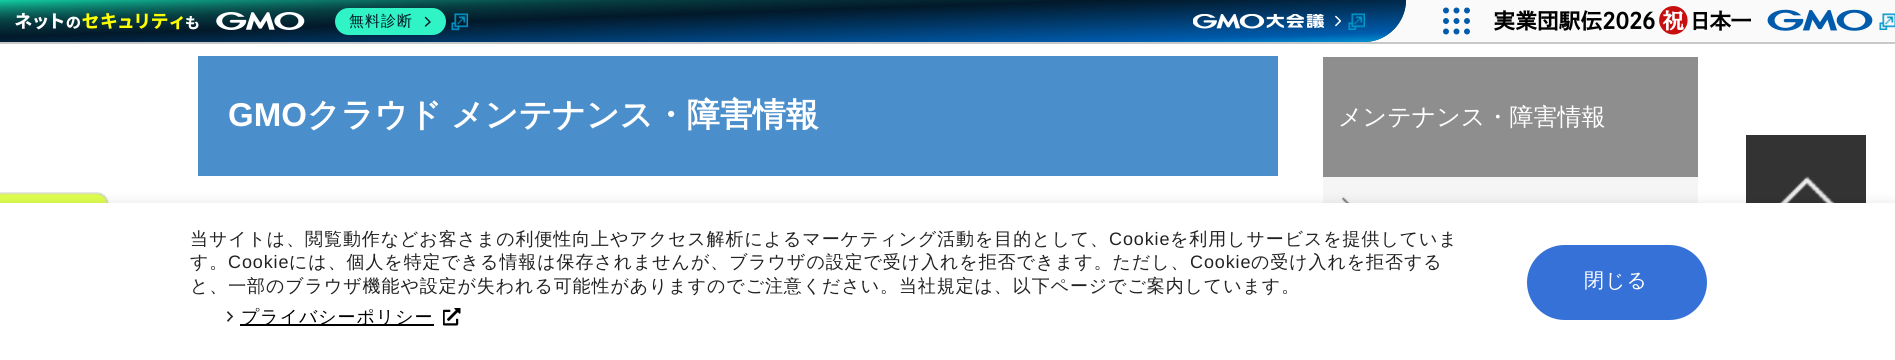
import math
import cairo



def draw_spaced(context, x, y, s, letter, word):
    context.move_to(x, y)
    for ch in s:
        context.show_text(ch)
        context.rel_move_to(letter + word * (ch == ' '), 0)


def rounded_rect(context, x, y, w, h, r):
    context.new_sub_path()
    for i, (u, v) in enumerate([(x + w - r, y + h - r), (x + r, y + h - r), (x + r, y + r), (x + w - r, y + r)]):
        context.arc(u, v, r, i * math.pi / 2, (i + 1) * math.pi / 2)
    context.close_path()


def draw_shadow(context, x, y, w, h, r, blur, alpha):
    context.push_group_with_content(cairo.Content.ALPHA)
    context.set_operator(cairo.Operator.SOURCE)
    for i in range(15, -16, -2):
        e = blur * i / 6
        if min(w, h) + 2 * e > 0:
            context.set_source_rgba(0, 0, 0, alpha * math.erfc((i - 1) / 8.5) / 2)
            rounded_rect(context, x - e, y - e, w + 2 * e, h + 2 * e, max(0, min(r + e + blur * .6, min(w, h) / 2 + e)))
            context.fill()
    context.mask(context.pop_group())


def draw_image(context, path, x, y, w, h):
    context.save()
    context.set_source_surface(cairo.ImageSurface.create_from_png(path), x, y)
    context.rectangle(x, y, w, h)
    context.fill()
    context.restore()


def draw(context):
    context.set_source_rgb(1, 1, 1)
    context.paint()
    context.set_source_rgb(250 / 255, 250 / 255, 250 / 255)
    context.rectangle(1364, 0, 531, 42)
    context.fill()
    context.set_source_rgb(200 / 255, 200 / 255, 200 / 255)
    context.rectangle(0, 42, 1895, 2)
    context.fill()
    gradient = cairo.LinearGradient(701, -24, 704, 66)
    gradient.add_color_stop_rgba(0, 19 / 255, 212 / 255, 165 / 255, 1)
    gradient.add_color_stop_rgba(0.25, 14 / 255, 115 / 255, 101 / 255, 1)
    gradient.add_color_stop_rgba(0.58, 11 / 255, 77 / 255, 75 / 255, 1)
    context.set_source(gradient)
    context.new_path()
    context.move_to(0, 0)
    context.line_to(1406, 0)
    context.curve_to(1406, 23, 1387, 42, 1364, 42)
    context.line_to(0, 42)
    context.close_path()
    context.fill()
    gradient = cairo.LinearGradient(704, 66, 701, -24)
    gradient.add_color_stop_rgba(0, 1 / 255, 156 / 255, 217 / 255, 1)
    gradient.add_color_stop_rgba(0.12, 0, 91 / 255, 172 / 255, 1)
    gradient.add_color_stop_rgba(0.58, 2 / 255, 25 / 255, 42 / 255, 1)
    gradient.add_color_stop_rgba(1, 2 / 255, 25 / 255, 42 / 255, 0)
    context.set_source(gradient)
    context.new_path()
    context.move_to(0, 0)
    context.line_to(1406, 0)
    context.curve_to(1406, 23, 1387, 42, 1364, 42)
    context.line_to(0, 42)
    context.close_path()
    context.fill()
    draw_image(context, "images/1.png", 451, 13, 17, 18)
    draw_image(context, "images/2.png", 15, 12, 290, 18)
    context.set_source_rgb(48 / 255, 244 / 255, 197 / 255)
    rounded_rect(context, 335, 8, 111, 27, 13.5)
    context.fill()
    context.new_path()
    context.move_to(425.5, 17.5)
    context.line_to(430, 22)
    context.line_to(425.5, 26)
    context.set_source_rgb(2 / 255, 23 / 255, 37 / 255)
    context.set_line_width(1.4)
    context.set_line_cap(cairo.LineCap.ROUND)
    context.set_line_join(cairo.LineJoin.ROUND)
    context.stroke()
    draw_image(context, "images/3.png", 1348, 13, 17, 17)
    draw_image(context, "images/4.png", 1193, 14, 148, 15)
    draw_image(context, "images/5.png", 1443, 7, 27, 28)
    draw_image(context, "images/6.png", 1879, 13, 16, 17)
    draw_image(context, "images/7.png", 1494, 6, 379, 29)
    context.set_source_rgb(74 / 255, 143 / 255, 204 / 255)
    context.rectangle(198, 56, 1080, 120)
    context.fill()
    context.set_source_rgb(142 / 255, 142 / 255, 142 / 255)
    context.rectangle(1323, 57, 375, 120)
    context.fill()
    context.set_source_rgb(245 / 255, 245 / 255, 245 / 255)
    context.rectangle(1323, 177, 375, 26)
    context.fill()
    draw_image(context, "images/8.png", 1341, 196, 9, 7)
    draw_image(context, "images/9.png", 0, 192, 109, 11)
    context.set_source_rgb(51 / 255, 51 / 255, 51 / 255)
    context.rectangle(1746, 135, 120, 68)
    context.fill()
    draw_image(context, "images/10.png", 1779, 176, 56, 27)
    context.set_source_rgb(0, 0, 0)
    draw_shadow(context, 0, 203, 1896, 157, 0, 6, 0.1)
    context.set_source_rgb(1, 1, 1)
    context.rectangle(0, 203, 1895, 157)
    context.fill()
    context.set_source_rgb(34 / 255, 34 / 255, 34 / 255)
    context.new_path()
    context.move_to(228, 311)
    context.line_to(233, 316.5)
    context.line_to(232, 317.5)
    context.line_to(227, 312.5)
    context.close_path()
    context.fill()
    context.new_path()
    context.move_to(232, 315.5)
    context.line_to(233, 316.5)
    context.line_to(228, 322)
    context.line_to(227, 320.5)
    context.close_path()
    context.fill()
    context.set_source_rgb(0, 0, 0)
    context.rectangle(240, 324, 194, 2)
    context.fill()
    draw_image(context, "images/11.png", 443, 308, 18, 18)
    context.set_source_rgb(54 / 255, 113 / 255, 215 / 255)
    rounded_rect(context, 1527, 245, 180, 75, 37.5)
    context.fill()
    context.select_font_face("WenQuanYi Zen Hei Medium")
    context.set_font_size(15)
    context.set_source_rgb(2 / 255, 23 / 255, 37 / 255)
    draw_spaced(context, 349, 26, "無料診断", 1, 0)
    context.select_font_face("Liberation Sans", cairo.FontSlant.NORMAL, cairo.FontWeight.BOLD)
    context.set_font_size(33)
    context.set_source_rgb(1, 1, 1)
    context.move_to(228, 126)
    context.show_text("GMO")
    context.select_font_face("WenQuanYi Zen Hei", cairo.FontSlant.NORMAL, cairo.FontWeight.BOLD)
    draw_spaced(context, 307, 126, "クラウド メンテナンス・障害情報", 0, -1)
    context.select_font_face("WenQuanYi Zen Hei Medium")
    context.set_font_size(24)
    context.move_to(1338, 125)
    context.show_text("メンテナンス・障害情報")
    context.set_font_size(18)
    context.set_source_rgb(34 / 255, 34 / 255, 34 / 255)
    draw_spaced(context, 190, 245, "当サイトは、閲覧動作などお客さまの利便性向上やアクセス解析によるマーケティング活動を目的として、", 0.9, 0)
    context.select_font_face("Liberation Sans")
    draw_spaced(context, 1109, 245, "Cookie", 0.9, 0)
    context.select_font_face("WenQuanYi Zen Hei Medium")
    draw_spaced(context, 1170, 245, "を利用しサービスを提供していま", 0.9, 0)
    draw_spaced(context, 190, 268, "す。", 0.9, 0)
    context.select_font_face("Liberation Sans")
    draw_spaced(context, 228, 268, "Cookie", 0.9, 0)
    context.select_font_face("WenQuanYi Zen Hei Medium")
    draw_spaced(context, 289, 268, "には、個人を特定できる情報は保存されませんが、ブラウザの設定で受け入れを拒否できます。ただし、", 0.9, 0)
    context.select_font_face("Liberation Sans")
    draw_spaced(context, 1190, 268, "Cookie", 0.9, 0)
    context.select_font_face("WenQuanYi Zen Hei Medium")
    draw_spaced(context, 1251, 268, "の受け入れを拒否する", 0.9, 0)
    draw_spaced(context, 190, 292, "と、一部のブラウザ機能や設定が失われる可能性がありますのでご注意ください。当社規定は、以下ページでご案内しています。", 0.9, 0)
    context.set_source_rgb(0, 0, 0)
    draw_spaced(context, 241, 323, "プライバシーポリシー", 0.9, 0)
    context.set_font_size(20)
    context.set_source_rgb(1, 1, 1)
    draw_spaced(context, 1584, 287, "閉じる", 1, 0)


surface = cairo.ImageSurface(cairo.Format.RGB24, 1895, 360)
context = cairo.Context(surface)
options = cairo.FontOptions()
options.set_hint_metrics(cairo.HintMetrics.OFF)
options.set_hint_style(cairo.HintStyle.NONE)
context.set_font_options(options)
context.set_miter_limit(4)
draw(context)
surface.write_to_png("out.png")
